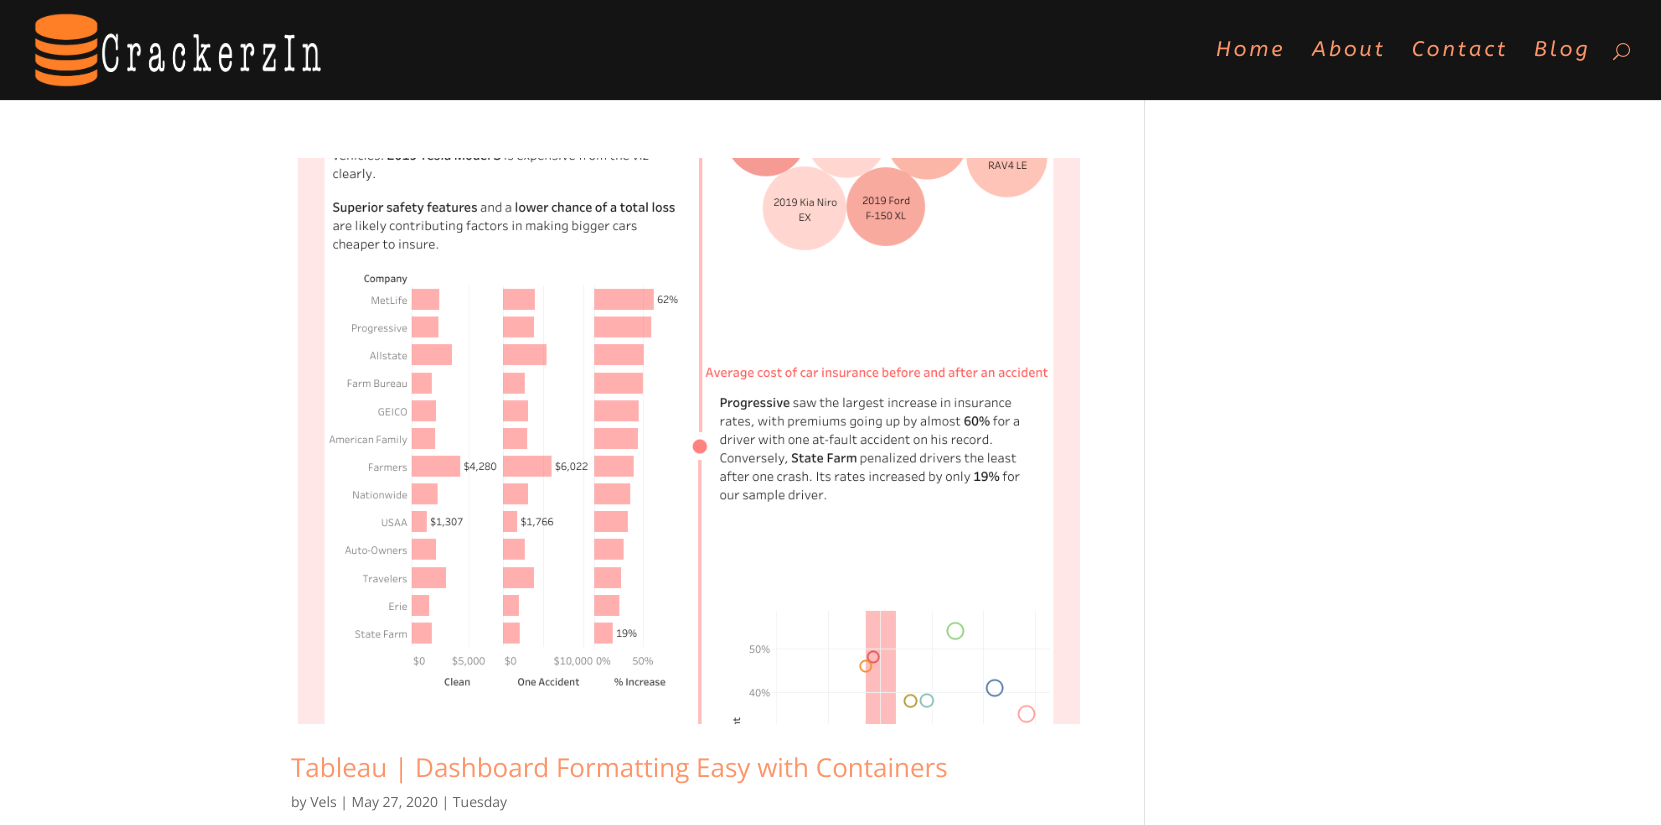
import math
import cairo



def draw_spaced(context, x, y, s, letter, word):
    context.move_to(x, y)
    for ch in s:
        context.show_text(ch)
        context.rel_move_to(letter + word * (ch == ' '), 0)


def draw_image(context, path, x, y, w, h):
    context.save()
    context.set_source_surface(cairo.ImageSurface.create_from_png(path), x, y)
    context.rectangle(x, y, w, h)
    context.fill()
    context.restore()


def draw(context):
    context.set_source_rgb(1, 1, 1)
    context.paint()
    context.set_source_rgb(230 / 255, 230 / 255, 230 / 255)
    context.rectangle(0, 100, 1661, 1)
    context.fill()
    context.set_source_rgb(20 / 255, 20 / 255, 20 / 255)
    context.rectangle(0, 0, 1661, 100)
    context.fill()
    draw_image(context, "images/1.png", 34, 13, 287, 74)
    draw_image(context, "images/2.png", 1613, 43, 17, 18)
    draw_image(context, "images/3.png", 297, 158, 783, 566)
    context.set_source_rgb(226 / 255, 226 / 255, 226 / 255)
    context.rectangle(1144, 100, 1, 725)
    context.fill()
    context.set_source_rgb(203 / 255, 203 / 255, 203 / 255)
    context.rectangle(1144, 100, 1, 1)
    context.fill()
    context.select_font_face("ABeeZee", cairo.FontSlant.ITALIC)
    context.set_font_size(21)
    context.set_source_rgb(252 / 255, 149 / 255, 105 / 255)
    draw_spaced(context, 1216, 56, "Home", 3, 0)
    draw_spaced(context, 1312, 56, "About", 3, 0)
    draw_spaced(context, 1412, 56, "Contact", 3, 0)
    draw_spaced(context, 1534, 56, "Blog", 3, 0)
    context.select_font_face("Open Sans")
    context.set_font_size(26)
    context.move_to(291, 777)
    context.show_text("Tableau | Dashboard Formatting Easy with Containers")
    context.set_font_size(14)
    context.set_source_rgb(102 / 255, 102 / 255, 102 / 255)
    context.move_to(291, 807)
    context.show_text("by Vels | May 27, 2020 | Tuesday")


surface = cairo.ImageSurface(cairo.Format.RGB24, 1661, 825)
context = cairo.Context(surface)
options = cairo.FontOptions()
options.set_hint_metrics(cairo.HintMetrics.OFF)
options.set_hint_style(cairo.HintStyle.NONE)
context.set_font_options(options)
context.set_miter_limit(4)
draw(context)
surface.write_to_png("out.png")
